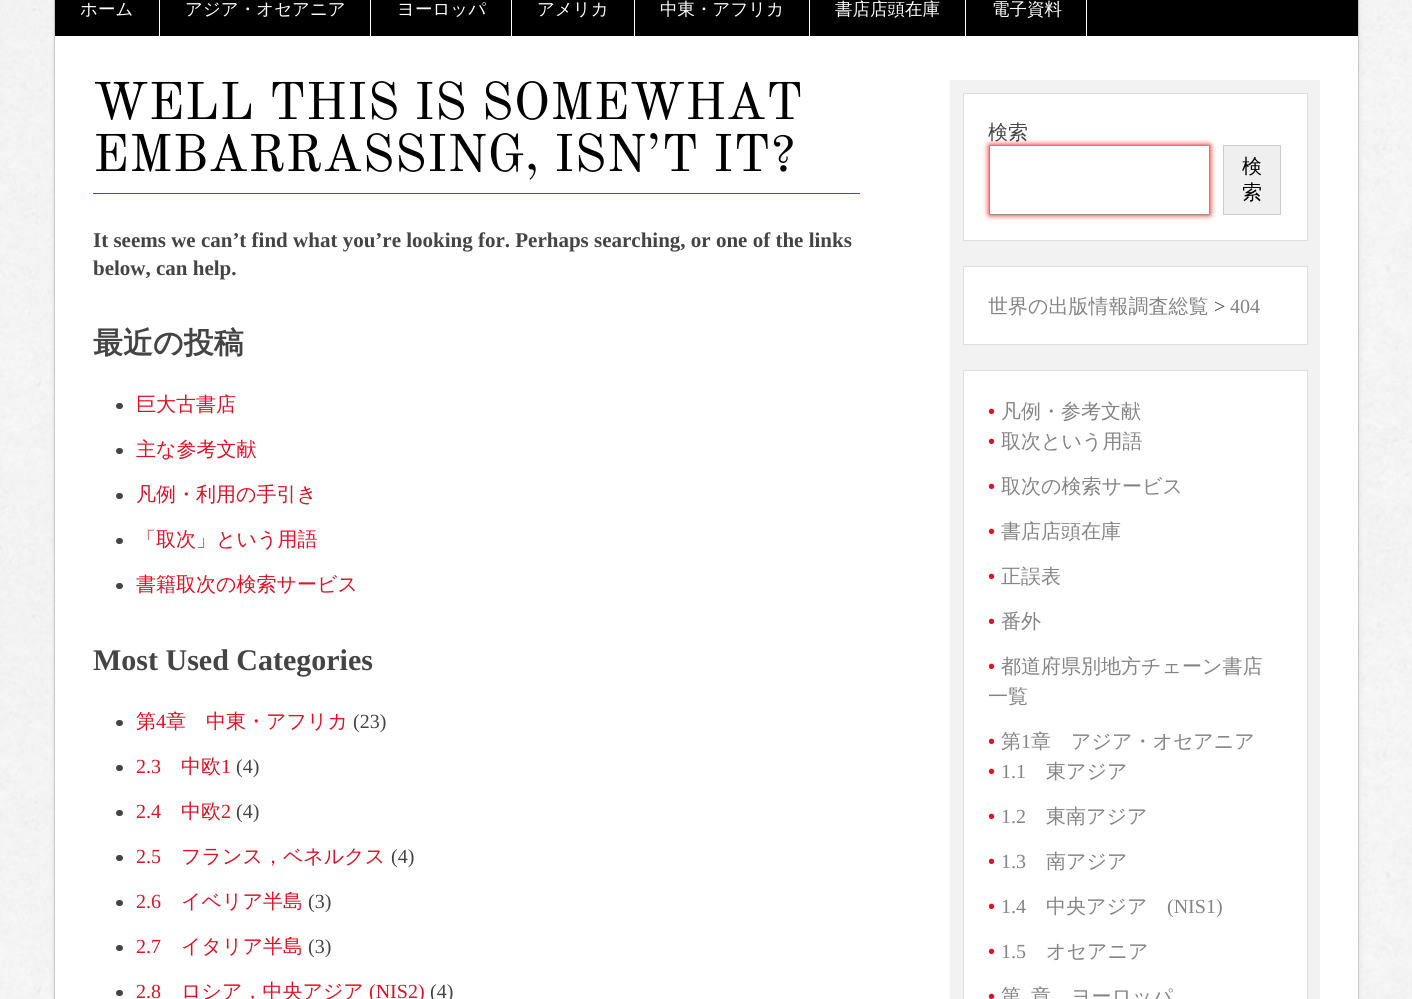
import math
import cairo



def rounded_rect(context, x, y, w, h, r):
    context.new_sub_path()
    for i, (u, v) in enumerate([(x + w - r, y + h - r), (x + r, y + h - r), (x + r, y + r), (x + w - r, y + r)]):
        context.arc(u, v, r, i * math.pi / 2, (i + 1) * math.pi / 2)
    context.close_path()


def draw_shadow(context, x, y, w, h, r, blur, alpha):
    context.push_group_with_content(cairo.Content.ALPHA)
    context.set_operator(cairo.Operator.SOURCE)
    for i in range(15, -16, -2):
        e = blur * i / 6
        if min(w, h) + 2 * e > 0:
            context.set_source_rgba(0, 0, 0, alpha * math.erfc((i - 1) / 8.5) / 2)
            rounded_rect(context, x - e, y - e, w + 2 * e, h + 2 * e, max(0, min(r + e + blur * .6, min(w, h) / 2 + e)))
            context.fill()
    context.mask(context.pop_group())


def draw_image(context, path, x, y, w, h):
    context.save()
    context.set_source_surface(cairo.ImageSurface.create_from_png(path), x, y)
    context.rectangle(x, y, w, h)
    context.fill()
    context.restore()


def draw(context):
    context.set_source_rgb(1, 1, 1)
    context.paint()
    draw_image(context, "images/1.png", 0, 0, 1412, 999)
    context.set_source_rgb(221 / 255, 221 / 255, 221 / 255)
    draw_shadow(context, 54, -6, 1305, 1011, 0, 2, 1)
    context.set_source_rgb(1, 1, 1)
    context.rectangle(55, 36, 1303, 963)
    context.fill()
    context.rectangle(54.5, -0.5, 1304, 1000)
    context.set_source_rgb(199 / 255, 200 / 255, 202 / 255)
    context.set_line_width(1)
    context.stroke()
    context.set_source_rgb(0, 0, 0)
    context.rectangle(55, 0, 1303, 36)
    context.fill()
    context.set_source_rgb(1, 1, 1)
    context.rectangle(159, 0, 1, 36)
    context.fill()
    context.rectangle(370, 0, 1, 36)
    context.fill()
    context.rectangle(511, 0, 1, 36)
    context.fill()
    context.rectangle(634, 0, 1, 36)
    context.fill()
    context.rectangle(809, 0, 1, 36)
    context.fill()
    context.rectangle(965, 0, 1, 36)
    context.fill()
    context.rectangle(1086, 0, 1, 36)
    context.fill()
    context.set_source_rgb(224 / 255, 18 / 255, 34 / 255)
    context.rectangle(93, 193, 767, 1)
    context.fill()
    context.set_source_rgb(68 / 255, 68 / 255, 68 / 255)
    rounded_rect(context, 116, 403, 7, 6, 3)
    context.fill()
    rounded_rect(context, 116, 448, 7, 6, 3)
    context.fill()
    rounded_rect(context, 116, 493, 7, 6, 3)
    context.fill()
    rounded_rect(context, 116, 538, 7, 6, 3)
    context.fill()
    rounded_rect(context, 116, 583, 7, 6, 3)
    context.fill()
    rounded_rect(context, 116, 720, 7, 6, 3)
    context.fill()
    rounded_rect(context, 116, 765, 7, 6, 3)
    context.fill()
    rounded_rect(context, 116, 810, 7, 6, 3)
    context.fill()
    rounded_rect(context, 116, 855, 7, 6, 3)
    context.fill()
    rounded_rect(context, 116, 900, 7, 6, 3)
    context.fill()
    rounded_rect(context, 116, 945, 7, 6, 3)
    context.fill()
    rounded_rect(context, 116, 990, 7, 6, 3)
    context.fill()
    context.set_source_rgb(242 / 255, 242 / 255, 242 / 255)
    context.rectangle(950, 80, 370, 919)
    context.fill()
    context.set_source_rgb(1, 1, 1)
    context.rectangle(963.5, 93.5, 344, 147)
    context.fill_preserve()
    context.set_source_rgb(222 / 255, 222 / 255, 222 / 255)
    context.stroke()
    context.set_source_rgb(1, 0, 0)
    draw_shadow(context, 989, 145, 221, 70, 1, 3, 1)
    context.set_source_rgb(1, 1, 1)
    rounded_rect(context, 989.5, 145.5, 220, 69, 0.5)
    context.fill_preserve()
    context.set_source_rgb(148 / 255, 148 / 255, 148 / 255)
    context.stroke()
    context.set_source_rgb(239 / 255, 239 / 255, 239 / 255)
    context.rectangle(1223.5, 145.5, 57, 69)
    context.fill_preserve()
    context.set_source_rgb(204 / 255, 204 / 255, 204 / 255)
    context.stroke()
    context.set_source_rgb(1, 1, 1)
    context.rectangle(963.5, 266.5, 344, 78)
    context.fill_preserve()
    context.set_source_rgb(222 / 255, 222 / 255, 222 / 255)
    context.stroke()
    context.set_source_rgb(1, 1, 1)
    context.rectangle(963.5, 370.5, 344, 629)
    context.fill_preserve()
    context.set_source_rgb(222 / 255, 222 / 255, 222 / 255)
    context.stroke()
    context.select_font_face("WenQuanYi Zen Hei Medium")
    context.set_font_size(17.5)
    context.set_source_rgb(1, 1, 1)
    context.move_to(80, 15)
    context.show_text("ホーム")
    context.move_to(185, 15)
    context.show_text("アジア・オセアニア")
    context.move_to(397, 15)
    context.show_text("ヨーロッパ")
    context.move_to(537, 15)
    context.show_text("アメリカ")
    context.move_to(660, 15)
    context.show_text("中東・アフリカ")
    context.move_to(835, 15)
    context.show_text("書店店頭在庫")
    context.move_to(992, 15)
    context.show_text("電子資料")
    context.select_font_face("Old Standard TT")
    context.set_font_size(52)
    context.set_source_rgb(0, 0, 0)
    context.move_to(93, 119)
    context.show_text("WELL THIS IS SOMEWHAT")
    context.move_to(93, 171)
    context.show_text("EMBARRASSING, ISN’T IT?")
    context.select_font_face("Liberation Serif", cairo.FontSlant.NORMAL, cairo.FontWeight.BOLD)
    context.set_font_size(21)
    context.set_source_rgb(68 / 255, 68 / 255, 68 / 255)
    context.move_to(93, 247)
    context.show_text("It seems we can’t find what you’re looking for. Perhaps searching, or one of the links")
    context.move_to(93, 275)
    context.show_text("below, can help.")
    context.select_font_face("WenQuanYi Zen Hei", cairo.FontSlant.NORMAL, cairo.FontWeight.BOLD)
    context.set_font_size(30)
    context.move_to(93, 353)
    context.show_text("最近の投稿")
    context.select_font_face("WenQuanYi Zen Hei Medium")
    context.set_font_size(20)
    context.set_source_rgb(224 / 255, 18 / 255, 34 / 255)
    context.move_to(136, 411)
    context.show_text("巨大古書店")
    context.move_to(136, 456)
    context.show_text("主な参考文献")
    context.move_to(136, 501)
    context.show_text("凡例・利用の手引き")
    context.move_to(136, 546)
    context.show_text("「取次」という用語")
    context.move_to(136, 591)
    context.show_text("書籍取次の検索サービス")
    context.select_font_face("Liberation Serif", cairo.FontSlant.NORMAL, cairo.FontWeight.BOLD)
    context.set_font_size(30)
    context.set_source_rgb(68 / 255, 68 / 255, 68 / 255)
    context.move_to(93, 670)
    context.show_text("Most Used Categories")
    context.select_font_face("WenQuanYi Zen Hei Medium")
    context.set_font_size(20)
    context.set_source_rgb(224 / 255, 18 / 255, 34 / 255)
    context.move_to(136, 728)
    context.show_text("第")
    context.select_font_face("Liberation Serif")
    context.move_to(156, 728)
    context.show_text("4")
    context.select_font_face("WenQuanYi Zen Hei Medium")
    context.move_to(166, 728)
    context.show_text("章　中東・アフリカ")
    context.select_font_face("Liberation Serif")
    context.set_source_rgb(68 / 255, 68 / 255, 68 / 255)
    context.move_to(353, 728)
    context.show_text("(23)")
    context.set_source_rgb(224 / 255, 18 / 255, 34 / 255)
    context.move_to(136, 773)
    context.show_text("2.3")
    context.select_font_face("WenQuanYi Zen Hei Medium")
    context.move_to(181, 773)
    context.show_text("中欧")
    context.select_font_face("Liberation Serif")
    context.move_to(221, 773)
    context.show_text("1")
    context.set_source_rgb(68 / 255, 68 / 255, 68 / 255)
    context.move_to(236, 773)
    context.show_text("(4)")
    context.set_source_rgb(224 / 255, 18 / 255, 34 / 255)
    context.move_to(136, 818)
    context.show_text("2.4")
    context.select_font_face("WenQuanYi Zen Hei Medium")
    context.move_to(181, 818)
    context.show_text("中欧")
    context.select_font_face("Liberation Serif")
    context.move_to(221, 818)
    context.show_text("2")
    context.set_source_rgb(68 / 255, 68 / 255, 68 / 255)
    context.move_to(236, 818)
    context.show_text("(4)")
    context.set_source_rgb(224 / 255, 18 / 255, 34 / 255)
    context.move_to(136, 863)
    context.show_text("2.5")
    context.select_font_face("WenQuanYi Zen Hei Medium")
    context.move_to(181, 863)
    context.show_text("フランス，ベネルクス")
    context.select_font_face("Liberation Serif")
    context.set_source_rgb(68 / 255, 68 / 255, 68 / 255)
    context.move_to(391, 863)
    context.show_text("(4)")
    context.set_source_rgb(224 / 255, 18 / 255, 34 / 255)
    context.move_to(136, 908)
    context.show_text("2.6")
    context.select_font_face("WenQuanYi Zen Hei Medium")
    context.move_to(181, 908)
    context.show_text("イベリア半島")
    context.select_font_face("Liberation Serif")
    context.set_source_rgb(68 / 255, 68 / 255, 68 / 255)
    context.move_to(308, 908)
    context.show_text("(3)")
    context.set_source_rgb(224 / 255, 18 / 255, 34 / 255)
    context.move_to(136, 953)
    context.show_text("2.7")
    context.select_font_face("WenQuanYi Zen Hei Medium")
    context.move_to(181, 953)
    context.show_text("イタリア半島")
    context.select_font_face("Liberation Serif")
    context.set_source_rgb(68 / 255, 68 / 255, 68 / 255)
    context.move_to(308, 953)
    context.show_text("(3)")
    context.set_source_rgb(224 / 255, 18 / 255, 34 / 255)
    context.move_to(136, 998)
    context.show_text("2.8")
    context.select_font_face("WenQuanYi Zen Hei Medium")
    context.move_to(181, 998)
    context.show_text("ロシア，中央アジア")
    context.select_font_face("Liberation Serif")
    context.move_to(369, 998)
    context.show_text("(NIS2)")
    context.set_source_rgb(68 / 255, 68 / 255, 68 / 255)
    context.move_to(430, 998)
    context.show_text("(4)")
    context.select_font_face("WenQuanYi Zen Hei Medium")
    context.move_to(988, 139)
    context.show_text("検索")
    context.set_source_rgb(0, 0, 0)
    context.move_to(1242, 173)
    context.show_text("検")
    context.move_to(1242, 199)
    context.show_text("索")
    context.set_source_rgb(132 / 255, 132 / 255, 132 / 255)
    context.move_to(988, 313)
    context.show_text("世界の出版情報調査総覧")
    context.select_font_face("Liberation Serif")
    context.set_source_rgb(68 / 255, 68 / 255, 68 / 255)
    context.move_to(1214, 313)
    context.show_text(">")
    context.set_source_rgb(132 / 255, 132 / 255, 132 / 255)
    context.move_to(1230, 313)
    context.show_text("404")
    context.select_font_face("Liberation Sans")
    context.set_source_rgb(224 / 255, 18 / 255, 34 / 255)
    context.move_to(988, 418)
    context.show_text("•")
    context.select_font_face("WenQuanYi Zen Hei Medium")
    context.set_source_rgb(132 / 255, 132 / 255, 132 / 255)
    context.move_to(1001, 418)
    context.show_text("凡例・参考文献")
    context.select_font_face("Liberation Sans")
    context.set_source_rgb(224 / 255, 18 / 255, 34 / 255)
    context.move_to(988, 448)
    context.show_text("•")
    context.select_font_face("WenQuanYi Zen Hei Medium")
    context.set_source_rgb(132 / 255, 132 / 255, 132 / 255)
    context.move_to(1001, 448)
    context.show_text("取次という用語")
    context.select_font_face("Liberation Sans")
    context.set_source_rgb(224 / 255, 18 / 255, 34 / 255)
    context.move_to(988, 493)
    context.show_text("•")
    context.select_font_face("WenQuanYi Zen Hei Medium")
    context.set_source_rgb(132 / 255, 132 / 255, 132 / 255)
    context.move_to(1001, 493)
    context.show_text("取次の検索サービス")
    context.select_font_face("Liberation Sans")
    context.set_source_rgb(224 / 255, 18 / 255, 34 / 255)
    context.move_to(988, 538)
    context.show_text("•")
    context.select_font_face("WenQuanYi Zen Hei Medium")
    context.set_source_rgb(132 / 255, 132 / 255, 132 / 255)
    context.move_to(1001, 538)
    context.show_text("書店店頭在庫")
    context.select_font_face("Liberation Sans")
    context.set_source_rgb(224 / 255, 18 / 255, 34 / 255)
    context.move_to(988, 583)
    context.show_text("•")
    context.select_font_face("WenQuanYi Zen Hei Medium")
    context.set_source_rgb(132 / 255, 132 / 255, 132 / 255)
    context.move_to(1001, 583)
    context.show_text("正誤表")
    context.select_font_face("Liberation Sans")
    context.set_source_rgb(224 / 255, 18 / 255, 34 / 255)
    context.move_to(988, 628)
    context.show_text("•")
    context.select_font_face("WenQuanYi Zen Hei Medium")
    context.set_source_rgb(132 / 255, 132 / 255, 132 / 255)
    context.move_to(1001, 628)
    context.show_text("番外")
    context.select_font_face("Liberation Sans")
    context.set_source_rgb(224 / 255, 18 / 255, 34 / 255)
    context.move_to(988, 673)
    context.show_text("•")
    context.select_font_face("WenQuanYi Zen Hei Medium")
    context.set_source_rgb(132 / 255, 132 / 255, 132 / 255)
    context.move_to(1001, 673)
    context.show_text("都道府県別地方チェーン書店")
    context.move_to(988, 703)
    context.show_text("一覧")
    context.select_font_face("Liberation Sans")
    context.set_source_rgb(224 / 255, 18 / 255, 34 / 255)
    context.move_to(988, 748)
    context.show_text("•")
    context.select_font_face("WenQuanYi Zen Hei Medium")
    context.set_source_rgb(132 / 255, 132 / 255, 132 / 255)
    context.move_to(1001, 748)
    context.show_text("第")
    context.select_font_face("Liberation Serif")
    context.move_to(1021, 748)
    context.show_text("1")
    context.select_font_face("WenQuanYi Zen Hei Medium")
    context.move_to(1031, 748)
    context.show_text("章　アジア・オセアニア")
    context.select_font_face("Liberation Sans")
    context.set_source_rgb(224 / 255, 18 / 255, 34 / 255)
    context.move_to(988, 778)
    context.show_text("•")
    context.select_font_face("Liberation Serif")
    context.set_source_rgb(132 / 255, 132 / 255, 132 / 255)
    context.move_to(1001, 778)
    context.show_text("1.1")
    context.select_font_face("WenQuanYi Zen Hei Medium")
    context.move_to(1046, 778)
    context.show_text("東アジア")
    context.select_font_face("Liberation Sans")
    context.set_source_rgb(224 / 255, 18 / 255, 34 / 255)
    context.move_to(988, 823)
    context.show_text("•")
    context.select_font_face("Liberation Serif")
    context.set_source_rgb(132 / 255, 132 / 255, 132 / 255)
    context.move_to(1001, 823)
    context.show_text("1.2")
    context.select_font_face("WenQuanYi Zen Hei Medium")
    context.move_to(1046, 823)
    context.show_text("東南アジア")
    context.select_font_face("Liberation Sans")
    context.set_source_rgb(224 / 255, 18 / 255, 34 / 255)
    context.move_to(988, 868)
    context.show_text("•")
    context.select_font_face("Liberation Serif")
    context.set_source_rgb(132 / 255, 132 / 255, 132 / 255)
    context.move_to(1001, 868)
    context.show_text("1.3")
    context.select_font_face("WenQuanYi Zen Hei Medium")
    context.move_to(1046, 868)
    context.show_text("南アジア")
    context.select_font_face("Liberation Sans")
    context.set_source_rgb(224 / 255, 18 / 255, 34 / 255)
    context.move_to(988, 913)
    context.show_text("•")
    context.select_font_face("Liberation Serif")
    context.set_source_rgb(132 / 255, 132 / 255, 132 / 255)
    context.move_to(1001, 913)
    context.show_text("1.4")
    context.select_font_face("WenQuanYi Zen Hei Medium")
    context.move_to(1046, 913)
    context.show_text("中央アジア")
    context.select_font_face("Liberation Serif")
    context.move_to(1167, 913)
    context.show_text("(NIS1)")
    context.select_font_face("Liberation Sans")
    context.set_source_rgb(224 / 255, 18 / 255, 34 / 255)
    context.move_to(988, 958)
    context.show_text("•")
    context.select_font_face("Liberation Serif")
    context.set_source_rgb(132 / 255, 132 / 255, 132 / 255)
    context.move_to(1001, 958)
    context.show_text("1.5")
    context.select_font_face("WenQuanYi Zen Hei Medium")
    context.move_to(1046, 958)
    context.show_text("オセアニア")
    context.select_font_face("Liberation Sans")
    context.set_source_rgb(224 / 255, 18 / 255, 34 / 255)
    context.move_to(988, 1003)
    context.show_text("•")
    context.select_font_face("WenQuanYi Zen Hei Medium")
    context.set_source_rgb(132 / 255, 132 / 255, 132 / 255)
    context.move_to(1001, 1003)
    context.show_text("第")
    context.move_to(1031, 1003)
    context.show_text("章　ヨーロッパ")


surface = cairo.ImageSurface(cairo.Format.RGB24, 1412, 999)
context = cairo.Context(surface)
options = cairo.FontOptions()
options.set_hint_metrics(cairo.HintMetrics.OFF)
options.set_hint_style(cairo.HintStyle.NONE)
context.set_font_options(options)
context.set_miter_limit(4)
draw(context)
surface.write_to_png("out.png")
